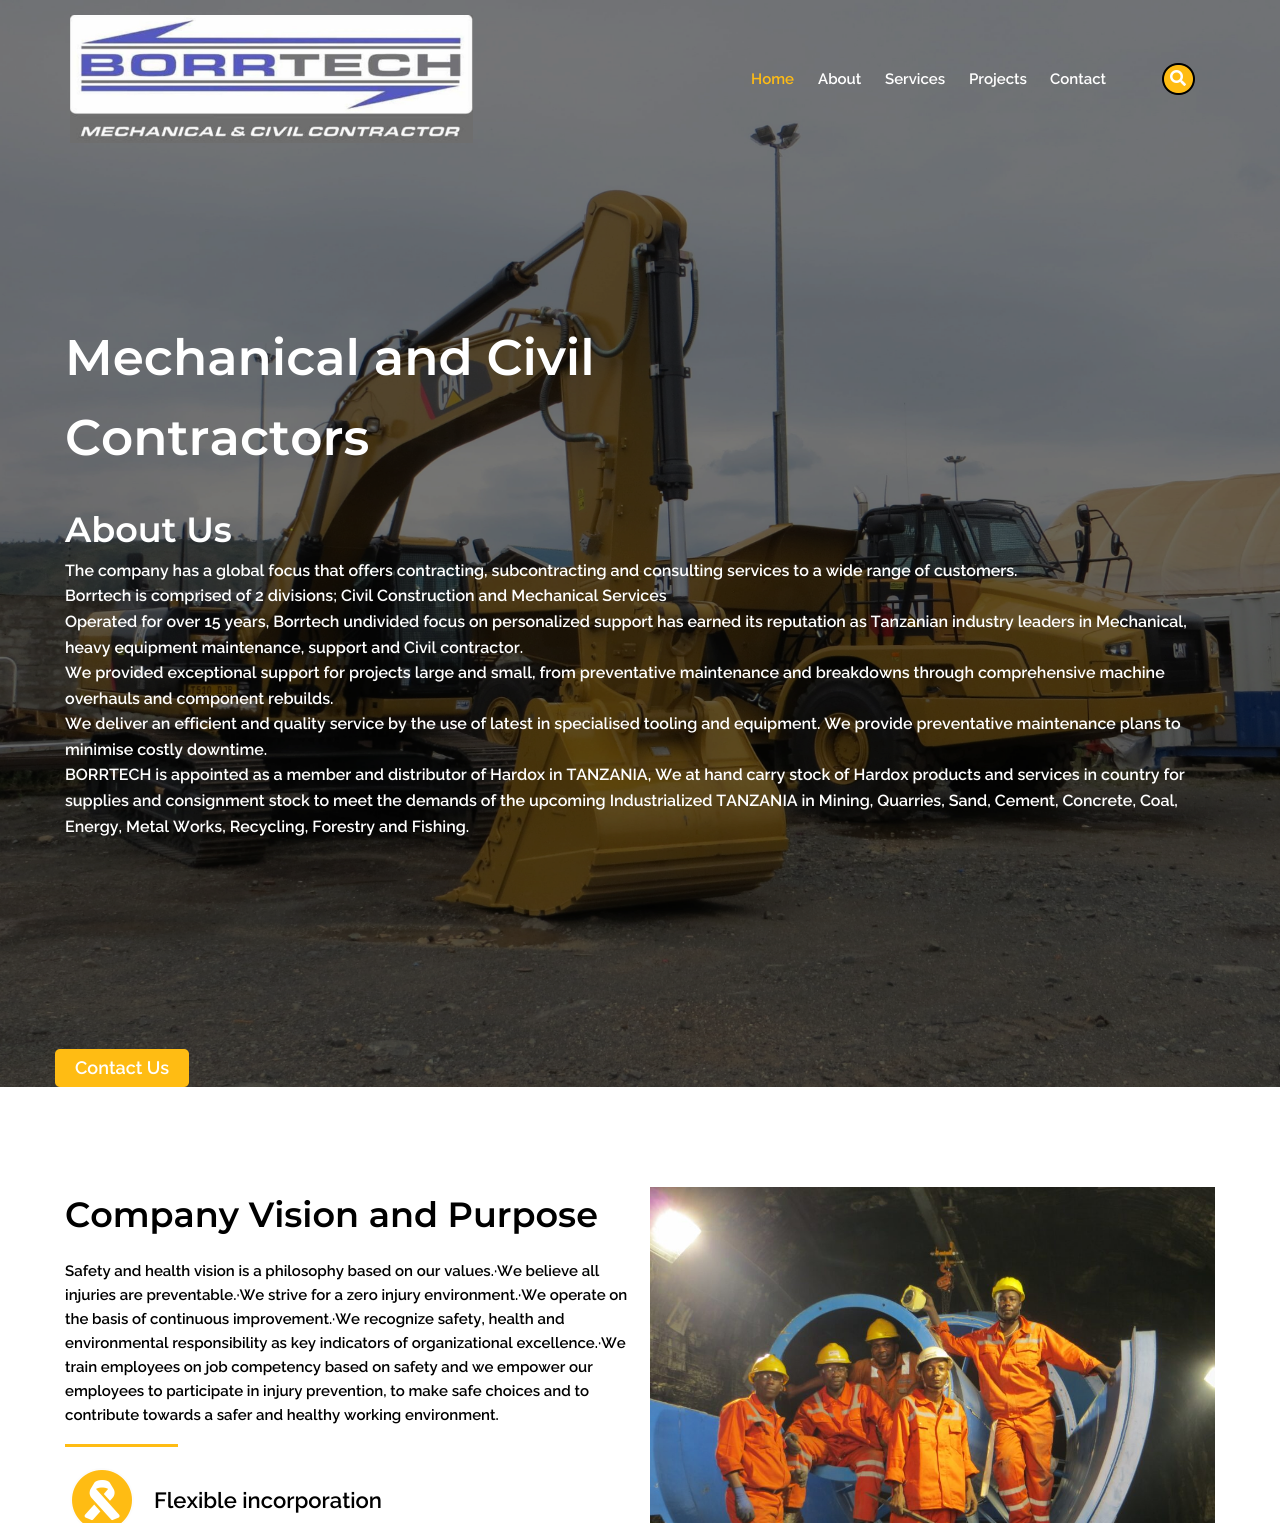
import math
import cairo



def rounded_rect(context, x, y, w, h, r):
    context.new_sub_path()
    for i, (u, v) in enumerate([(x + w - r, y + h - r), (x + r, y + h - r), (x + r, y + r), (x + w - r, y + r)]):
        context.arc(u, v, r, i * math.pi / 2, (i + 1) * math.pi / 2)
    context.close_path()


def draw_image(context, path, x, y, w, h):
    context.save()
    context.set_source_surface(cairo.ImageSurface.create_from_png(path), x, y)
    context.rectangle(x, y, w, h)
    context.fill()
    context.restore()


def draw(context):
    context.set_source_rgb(1, 1, 1)
    context.paint()
    draw_image(context, "images/1.png", 0, 0, 1280, 1087)
    draw_image(context, "images/2.png", 70, 15, 403, 128)
    context.set_source_rgb(1, 188 / 255, 19 / 255)
    rounded_rect(context, 1163, 64, 31, 30, 15)
    context.fill_preserve()
    context.set_source_rgb(0, 0, 0)
    context.stroke()
    draw_image(context, "images/3.png", 1170, 70, 16, 16)
    context.set_source_rgb(1, 188 / 255, 19 / 255)
    rounded_rect(context, 55, 1049, 134, 38, 5)
    context.fill()
    context.rectangle(65, 1444, 113, 3)
    context.fill()
    context.arc(102, 1500, 31, 0, 2 * math.pi)
    context.fill_preserve()
    context.set_source_rgb(252 / 255, 252 / 255, 252 / 255)
    context.stroke()
    draw_image(context, "images/4.png", 84, 1480, 36, 41)
    draw_image(context, "images/5.png", 650, 1187, 565, 336)
    context.select_font_face("Raleway SemiBold")
    context.set_font_size(15)
    context.set_source_rgb(1, 188 / 255, 19 / 255)
    context.move_to(751, 84)
    context.show_text("Home")
    context.set_source_rgb(1, 1, 1)
    context.move_to(818, 84)
    context.show_text("About")
    context.move_to(885, 84)
    context.show_text("Services")
    context.move_to(969, 84)
    context.show_text("Projects")
    context.move_to(1050, 84)
    context.show_text("Contact")
    context.select_font_face("Montserrat SemiBold")
    context.set_font_size(50)
    context.move_to(65, 375)
    context.show_text("Mechanical and Civil")
    context.move_to(65, 455)
    context.show_text("Contractors")
    context.set_font_size(35)
    context.move_to(65, 542)
    context.show_text("About Us")
    context.select_font_face("Raleway SemiBold")
    context.set_font_size(16)
    context.move_to(65, 576)
    context.show_text("The company has a global focus that offers contracting, subcontracting and consulting services to a wide range of customers.")
    context.move_to(65, 601)
    context.show_text("Borrtech is comprised of 2 divisions; Civil Construction and Mechanical Services")
    context.move_to(65, 627)
    context.show_text("Operated for over 15 years, Borrtech undivided focus on personalized support has earned its reputation as Tanzanian industry leaders in Mechanical,")
    context.move_to(65, 653)
    context.show_text("heavy equipment maintenance, support and Civil contractor.")
    context.move_to(65, 678)
    context.show_text("We provided exceptional support for projects large and small, from preventative maintenance and breakdowns through comprehensive machine")
    context.move_to(65, 704)
    context.show_text("overhauls and component rebuilds.")
    context.move_to(65, 729)
    context.show_text("We deliver an efficient and quality service by the use of latest in specialised tooling and equipment. We provide preventative maintenance plans to")
    context.move_to(65, 755)
    context.show_text("minimise costly downtime.")
    context.move_to(65, 780)
    context.show_text("BORRTECH is appointed as a member and distributor of Hardox in TANZANIA, We at hand carry stock of Hardox products and services in country for")
    context.move_to(65, 806)
    context.show_text("supplies and consignment stock to meet the demands of the upcoming Industrialized TANZANIA in Mining, Quarries, Sand, Cement, Concrete, Coal,")
    context.move_to(65, 832)
    context.show_text("Energy, Metal Works, Recycling, Forestry and Fishing.")
    context.set_font_size(18)
    context.move_to(75, 1074)
    context.show_text("Contact Us")
    context.select_font_face("Montserrat SemiBold")
    context.set_font_size(35)
    context.set_source_rgb(0, 0, 0)
    context.move_to(65, 1227)
    context.show_text("Company Vision and Purpose")
    context.select_font_face("Raleway SemiBold")
    context.set_font_size(15)
    context.move_to(65, 1276)
    context.show_text("Safety and health vision is a philosophy based on our values.·We believe all")
    context.move_to(65, 1300)
    context.show_text("injuries are preventable.·We strive for a zero injury environment.·We operate on")
    context.move_to(65, 1324)
    context.show_text("the basis of continuous improvement.·We recognize safety, health and")
    context.move_to(65, 1348)
    context.show_text("environmental responsibility as key indicators of organizational excellence.·We")
    context.move_to(65, 1372)
    context.show_text("train employees on job competency based on safety and we empower our")
    context.move_to(65, 1396)
    context.show_text("employees to participate in injury prevention, to make safe choices and to")
    context.move_to(65, 1420)
    context.show_text("contribute towards a safer and healthy working environment.")
    context.set_font_size(22)
    context.move_to(154, 1508)
    context.show_text("Flexible incorporation")


surface = cairo.ImageSurface(cairo.Format.RGB24, 1280, 1523)
context = cairo.Context(surface)
options = cairo.FontOptions()
options.set_hint_metrics(cairo.HintMetrics.OFF)
options.set_hint_style(cairo.HintStyle.NONE)
context.set_font_options(options)
context.set_miter_limit(4)
draw(context)
surface.write_to_png("out.png")
